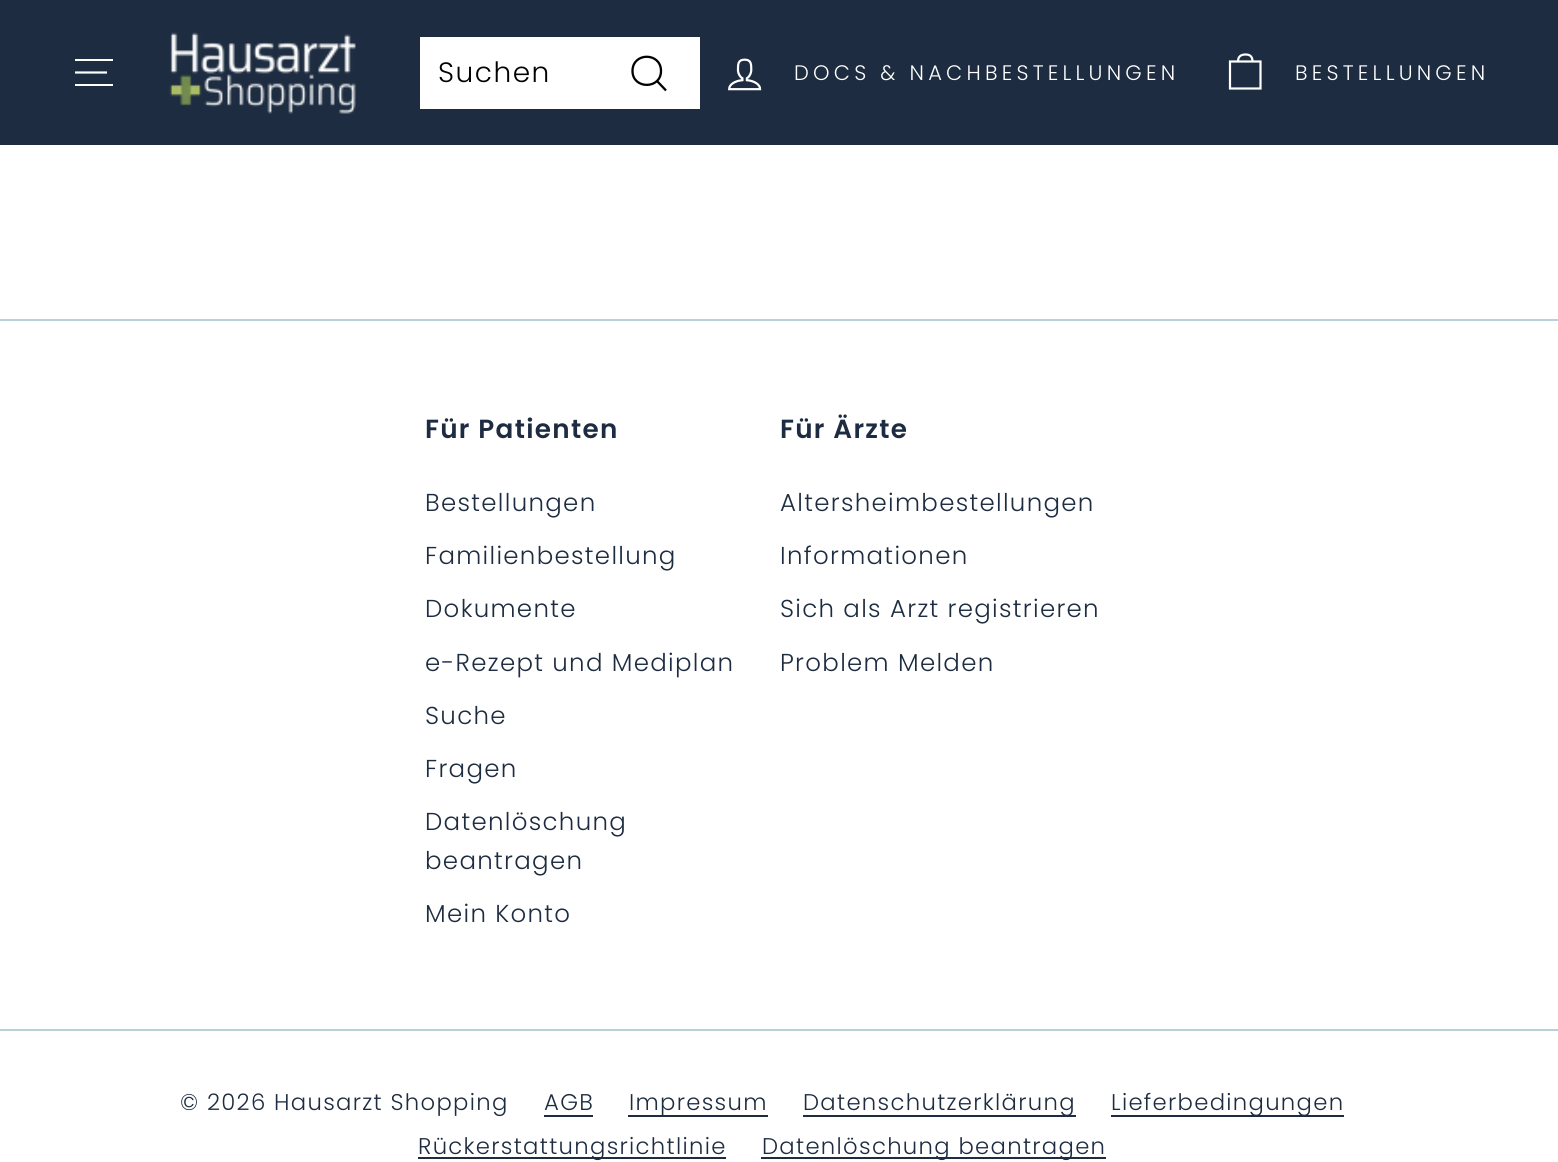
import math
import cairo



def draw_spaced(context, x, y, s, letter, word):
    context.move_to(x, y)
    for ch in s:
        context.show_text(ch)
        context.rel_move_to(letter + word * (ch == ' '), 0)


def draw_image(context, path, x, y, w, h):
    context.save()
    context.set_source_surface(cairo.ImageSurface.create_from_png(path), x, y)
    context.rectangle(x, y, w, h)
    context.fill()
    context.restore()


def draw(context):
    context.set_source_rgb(1, 1, 1)
    context.paint()
    context.set_source_rgb(29 / 255, 44 / 255, 64 / 255)
    context.rectangle(0, 0, 1558, 145)
    context.fill()
    context.set_source_rgb(1, 1, 1)
    context.rectangle(75, 59, 38, 2)
    context.fill()
    context.new_path()
    context.move_to(75, 72.5)
    context.line_to(107, 72.5)
    context.set_line_width(2.2)
    context.stroke()
    context.rectangle(75, 84, 38, 2)
    context.fill()
    draw_image(context, "images/1.png", 169, 32, 187, 82)
    context.rectangle(420, 37, 280, 72)
    context.fill()
    context.new_path()
    context.move_to(661, 71)
    context.curve_to(661, 89.5, 632.5, 89.5, 632.5, 71)
    context.curve_to(632.5, 52, 661, 52, 661, 71)
    context.close_path()
    context.move_to(666, 90.5)
    context.line_to(657, 81)
    context.set_source_rgb(0, 0, 0)
    context.set_line_width(2.3)
    context.stroke()
    draw_image(context, "images/2.png", 728, 58, 34, 33)
    context.new_path()
    context.move_to(1238, 61.5)
    context.curve_to(1238, 56, 1241.5, 54.5, 1245.5, 54.5)
    context.curve_to(1249.5, 54.5, 1252.5, 56, 1252.5, 61.5)
    context.move_to(1230, 61.5)
    context.line_to(1260.5, 61.5)
    context.line_to(1260.5, 88.5)
    context.line_to(1230, 88.5)
    context.close_path()
    context.set_source_rgb(1, 1, 1)
    context.set_line_width(2.2)
    context.stroke()
    context.set_source_rgb(184 / 255, 208 / 255, 217 / 255)
    context.rectangle(0, 319, 1558, 2)
    context.fill()
    context.rectangle(0, 1029, 1558, 2)
    context.fill()
    context.set_source_rgb(29 / 255, 44 / 255, 64 / 255)
    context.rectangle(544, 1115, 49, 2)
    context.fill()
    context.rectangle(628, 1115, 140, 2)
    context.fill()
    context.rectangle(803, 1115, 273, 2)
    context.fill()
    context.rectangle(1111, 1115, 233, 2)
    context.fill()
    context.rectangle(418, 1157, 308, 2)
    context.fill()
    context.rectangle(761, 1157, 345, 2)
    context.fill()
    context.select_font_face("Poppins Light")
    context.set_font_size(28)
    context.set_source_rgb(0, 0, 0)
    draw_spaced(context, 438, 82, "Suchen", 1.5, 0)
    context.set_font_size(21)
    context.set_source_rgb(1, 1, 1)
    draw_spaced(context, 794, 80, "DOCS & NACHBESTELLUNGEN", 4.2, 0)
    draw_spaced(context, 1295, 80, "BESTELLUNGEN", 4.2, 0)
    context.select_font_face("Poppins SemiBold")
    context.set_font_size(26.25)
    context.set_source_rgb(29 / 255, 44 / 255, 64 / 255)
    draw_spaced(context, 425, 438, "Für Patienten", 1.3, 0)
    context.select_font_face("Poppins Light")
    context.set_font_size(24.5)
    draw_spaced(context, 425, 511, "Bestellungen", 1.3, 0)
    draw_spaced(context, 425, 564, "Familienbestellung", 1.3, 0)
    draw_spaced(context, 425, 617, "Dokumente", 1.3, 0)
    draw_spaced(context, 425, 671, "e-Rezept und Mediplan", 1.3, 0)
    draw_spaced(context, 425, 724, "Suche", 1.3, 0)
    draw_spaced(context, 425, 777, "Fragen", 1.3, 0)
    draw_spaced(context, 425, 830, "Datenlöschung", 1.3, 0)
    draw_spaced(context, 425, 869, "beantragen", 1.3, 0)
    draw_spaced(context, 425, 922, "Mein Konto", 1.3, 0)
    context.select_font_face("Poppins SemiBold")
    context.set_font_size(26.25)
    draw_spaced(context, 780, 438, "Für Ärzte", 1.3, 0)
    context.select_font_face("Poppins Light")
    context.set_font_size(24.5)
    draw_spaced(context, 780, 511, "Altersheimbestellungen", 1.3, 0)
    draw_spaced(context, 780, 564, "Informationen", 1.3, 0)
    draw_spaced(context, 780, 617, "Sich als Arzt registrieren", 1.3, 0)
    draw_spaced(context, 780, 671, "Problem Melden", 1.3, 0)
    context.set_font_size(22.75)
    draw_spaced(context, 180, 1110, "© 2026 Hausarzt Shopping", 1.3, 0)
    draw_spaced(context, 544, 1110, "AGB", 1.3, 0)
    draw_spaced(context, 629, 1110, "Impressum", 1.3, 0)
    draw_spaced(context, 803, 1110, "Datenschutzerklärung", 1.3, 0)
    draw_spaced(context, 1111, 1110, "Lieferbedingungen", 1.3, 0)
    draw_spaced(context, 418, 1154, "Rückerstattungsrichtlinie", 1.3, 0)
    draw_spaced(context, 762, 1154, "Datenlöschung beantragen", 1.3, 0)


surface = cairo.ImageSurface(cairo.Format.RGB24, 1558, 1162)
context = cairo.Context(surface)
options = cairo.FontOptions()
options.set_hint_metrics(cairo.HintMetrics.OFF)
options.set_hint_style(cairo.HintStyle.NONE)
context.set_font_options(options)
context.set_miter_limit(4)
draw(context)
surface.write_to_png("out.png")
